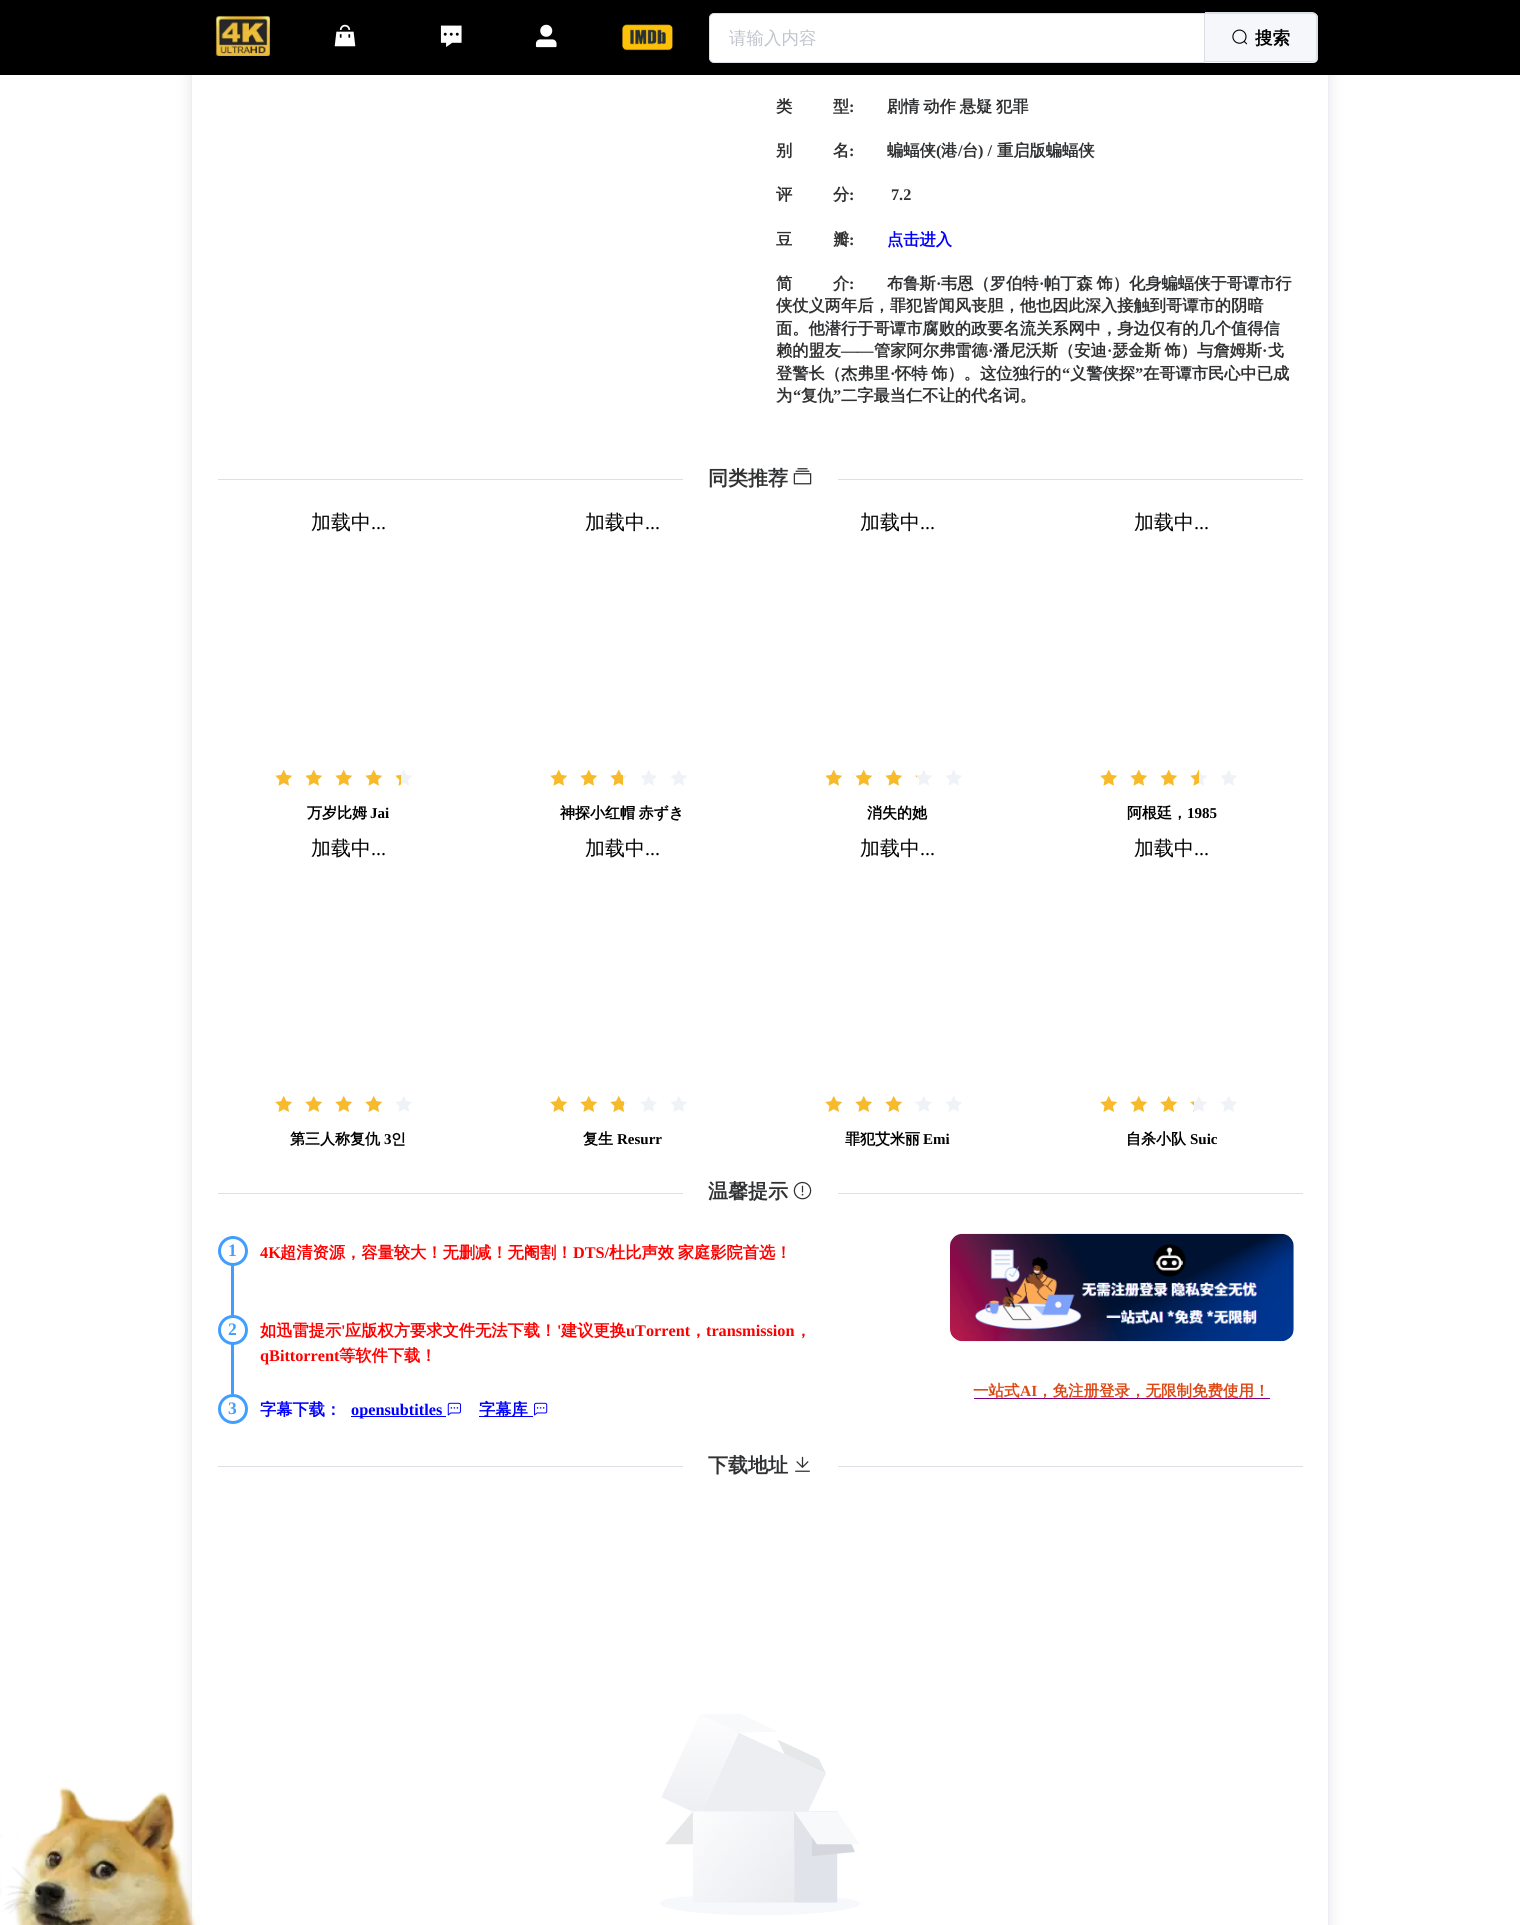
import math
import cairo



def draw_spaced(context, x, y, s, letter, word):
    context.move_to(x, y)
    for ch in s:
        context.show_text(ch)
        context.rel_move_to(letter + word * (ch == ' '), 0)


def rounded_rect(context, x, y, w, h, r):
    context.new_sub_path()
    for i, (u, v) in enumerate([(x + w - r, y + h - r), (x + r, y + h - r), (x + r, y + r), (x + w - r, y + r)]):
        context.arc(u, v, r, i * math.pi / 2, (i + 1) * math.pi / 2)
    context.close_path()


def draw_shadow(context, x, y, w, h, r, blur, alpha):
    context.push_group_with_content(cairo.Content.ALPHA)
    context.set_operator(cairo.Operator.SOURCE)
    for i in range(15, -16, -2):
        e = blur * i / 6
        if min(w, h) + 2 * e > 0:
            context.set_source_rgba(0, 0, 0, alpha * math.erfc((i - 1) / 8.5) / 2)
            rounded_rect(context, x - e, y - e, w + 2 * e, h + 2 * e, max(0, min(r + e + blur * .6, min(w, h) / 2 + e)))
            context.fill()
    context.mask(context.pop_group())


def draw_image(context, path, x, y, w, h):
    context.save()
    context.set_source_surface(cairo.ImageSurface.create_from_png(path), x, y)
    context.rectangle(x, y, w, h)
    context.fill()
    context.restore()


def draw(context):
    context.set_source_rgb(1, 1, 1)
    context.paint()
    context.set_source_rgb(0, 0, 0)
    draw_shadow(context, 191, -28, 1138, 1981, 5, 7.5, 0.1)
    context.set_source_rgb(1, 1, 1)
    context.rectangle(192, 75, 1136, 1850)
    context.fill()
    context.rectangle(191.5, -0.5, 1137, 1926)
    context.set_source_rgb(235 / 255, 238 / 255, 245 / 255)
    context.set_line_width(1)
    context.stroke()
    context.set_source_rgb(0, 0, 0)
    context.rectangle(0, 0, 1520, 75)
    context.fill()
    draw_image(context, "images/1.png", 215, 15, 55, 41)
    draw_image(context, "images/2.png", 334, 24, 22, 23)
    draw_image(context, "images/3.png", 440, 25, 22, 22)
    draw_image(context, "images/4.png", 535, 24, 22, 24)
    draw_image(context, "images/5.png", 622, 24, 51, 27)
    context.set_source_rgb(1, 1, 1)
    context.new_path()
    context.move_to(714, 13.5)
    context.line_to(1204.5, 13.5)
    context.line_to(1204.5, 62.5)
    context.line_to(714, 62.5)
    context.curve_to(711.5, 62.5, 709.5, 60.5, 709.5, 58)
    context.line_to(709.5, 18)
    context.curve_to(709.5, 15.5, 711.5, 13.5, 714, 13.5)
    context.close_path()
    context.fill_preserve()
    context.set_source_rgb(220 / 255, 223 / 255, 230 / 255)
    context.stroke()
    context.set_source_rgb(245 / 255, 247 / 255, 250 / 255)
    context.new_path()
    context.move_to(1205, 13)
    context.line_to(1313, 13)
    context.curve_to(1316, 13, 1318, 15, 1318, 18)
    context.line_to(1318, 58)
    context.curve_to(1318, 61, 1316, 63, 1313, 63)
    context.line_to(1205, 63)
    context.close_path()
    context.fill()
    context.set_source_rgb(220 / 255, 223 / 255, 230 / 255)
    context.set_fill_rule(cairo.FillRule.EVEN_ODD)
    context.new_path()
    context.move_to(1205, 12)
    context.line_to(1312, 12)
    context.curve_to(1315, 12, 1318, 15, 1318, 18)
    context.line_to(1318, 58)
    context.curve_to(1318, 60, 1315, 62, 1312, 62)
    context.line_to(1205, 62)
    context.close_path()
    context.move_to(1205, 14)
    context.line_to(1312, 14)
    context.curve_to(1315, 14, 1316, 15, 1316, 18)
    context.line_to(1316, 58)
    context.curve_to(1316, 60, 1315, 61, 1312, 61)
    context.line_to(1205, 61)
    context.close_path()
    context.fill()
    draw_image(context, "images/6.png", 1232, 29, 16, 16)
    context.rectangle(218, 479, 1085, 1)
    context.fill()
    context.set_source_rgb(1, 1, 1)
    context.rectangle(683, 479, 155, 1)
    context.fill()
    draw_image(context, "images/7.png", 793, 468, 19, 17)
    draw_image(context, "images/8.png", 275, 769, 17, 17)
    draw_image(context, "images/8.png", 305, 769, 17, 17)
    draw_image(context, "images/8.png", 335, 769, 17, 17)
    draw_image(context, "images/8.png", 365, 769, 17, 17)
    draw_image(context, "images/9.png", 396, 770, 16, 16)
    draw_image(context, "images/10.png", 395, 774, 6, 12)
    draw_image(context, "images/8.png", 550, 769, 17, 17)
    draw_image(context, "images/8.png", 580, 769, 17, 17)
    draw_image(context, "images/9.png", 611, 770, 16, 16)
    draw_image(context, "images/11.png", 610, 769, 13, 17)
    draw_image(context, "images/9.png", 641, 770, 16, 16)
    draw_image(context, "images/9.png", 671, 770, 16, 16)
    draw_image(context, "images/8.png", 825, 769, 17, 17)
    draw_image(context, "images/8.png", 855, 769, 17, 17)
    draw_image(context, "images/8.png", 885, 769, 17, 17)
    draw_image(context, "images/9.png", 916, 770, 16, 16)
    draw_image(context, "images/12.png", 915, 775, 2, 3)
    draw_image(context, "images/9.png", 946, 770, 16, 16)
    draw_image(context, "images/8.png", 1100, 769, 17, 17)
    draw_image(context, "images/8.png", 1130, 769, 17, 17)
    draw_image(context, "images/8.png", 1160, 769, 17, 17)
    draw_image(context, "images/9.png", 1191, 770, 16, 16)
    draw_image(context, "images/13.png", 1190, 769, 9, 17)
    draw_image(context, "images/9.png", 1221, 770, 16, 16)
    draw_image(context, "images/14.png", 275, 1096, 17, 16)
    draw_image(context, "images/14.png", 305, 1096, 17, 16)
    draw_image(context, "images/14.png", 335, 1096, 17, 16)
    draw_image(context, "images/15.png", 365, 1096, 17, 16)
    draw_image(context, "images/16.png", 365, 1096, 17, 16)
    draw_image(context, "images/15.png", 395, 1096, 17, 16)
    draw_image(context, "images/14.png", 550, 1096, 17, 16)
    draw_image(context, "images/14.png", 580, 1096, 17, 16)
    draw_image(context, "images/15.png", 610, 1096, 17, 16)
    draw_image(context, "images/17.png", 610, 1096, 14, 16)
    draw_image(context, "images/15.png", 640, 1096, 17, 16)
    draw_image(context, "images/15.png", 670, 1096, 17, 16)
    draw_image(context, "images/14.png", 825, 1096, 17, 16)
    draw_image(context, "images/14.png", 855, 1096, 17, 16)
    draw_image(context, "images/14.png", 885, 1096, 17, 16)
    draw_image(context, "images/15.png", 915, 1096, 17, 16)
    draw_image(context, "images/18.png", 915, 1101, 1, 2)
    draw_image(context, "images/15.png", 945, 1096, 17, 16)
    draw_image(context, "images/14.png", 1100, 1096, 17, 16)
    draw_image(context, "images/14.png", 1130, 1096, 17, 16)
    draw_image(context, "images/14.png", 1160, 1096, 17, 16)
    draw_image(context, "images/15.png", 1190, 1096, 17, 16)
    draw_image(context, "images/19.png", 1190, 1101, 4, 11)
    draw_image(context, "images/15.png", 1220, 1096, 17, 16)
    context.set_source_rgb(220 / 255, 223 / 255, 230 / 255)
    context.rectangle(218, 1193, 1085, 1)
    context.fill()
    context.set_source_rgb(1, 1, 1)
    context.rectangle(683, 1193, 155, 1)
    context.fill()
    draw_image(context, "images/20.png", 793, 1181, 19, 19)
    context.set_source_rgb(64 / 255, 158 / 255, 1)
    context.rectangle(231, 1236, 3, 158)
    context.fill()
    context.set_source_rgb(1, 1, 1)
    context.arc(233, 1251, 13.5, 0, 2 * math.pi)
    context.fill_preserve()
    context.set_source_rgb(64 / 255, 158 / 255, 1)
    context.set_line_width(3)
    context.stroke()
    context.set_source_rgb(1, 1, 1)
    context.arc(233, 1330, 13.5, 0, 2 * math.pi)
    context.fill_preserve()
    context.set_source_rgb(64 / 255, 158 / 255, 1)
    context.stroke()
    context.arc(233, 1409, 13.5, 0, 2 * math.pi)
    context.stroke()
    context.set_source_rgb(0, 0, 1)
    context.rectangle(351, 1416, 95, 1)
    context.fill()
    draw_image(context, "images/21.png", 447, 1402, 14, 14)
    context.rectangle(479, 1416, 54, 1)
    context.fill()
    draw_image(context, "images/22.png", 534, 1402, 14, 14)
    draw_image(context, "images/23.png", 950, 1233, 344, 109)
    context.set_source_rgb(128 / 255, 0, 128 / 255)
    context.rectangle(974, 1398, 296, 1)
    context.fill()
    context.set_source_rgb(220 / 255, 223 / 255, 230 / 255)
    context.rectangle(218, 1466, 1085, 1)
    context.fill()
    context.set_source_rgb(1, 1, 1)
    context.rectangle(683, 1466, 155, 1)
    context.fill()
    draw_image(context, "images/24.png", 795, 1456, 15, 16)
    draw_image(context, "images/25.png", 660, 1714, 200, 201)
    draw_image(context, "images/26.png", 0, 1787, 200, 138)
    context.select_font_face("WenQuanYi Zen Hei Medium")
    context.set_font_size(17.5)
    context.set_source_rgb(192 / 255, 196 / 255, 204 / 255)
    context.move_to(729, 44)
    context.show_text("请输入内容")
    context.select_font_face("WenQuanYi Zen Hei", cairo.FontSlant.NORMAL, cairo.FontWeight.BOLD)
    context.set_source_rgb(0, 0, 0)
    context.move_to(1255, 44)
    context.show_text("搜索")
    context.set_font_size(16.25)
    context.set_source_rgb(48 / 255, 49 / 255, 51 / 255)
    context.move_to(776, 112)
    context.show_text("类")
    context.move_to(833, 112)
    context.show_text("型")
    context.select_font_face("Liberation Serif", cairo.FontSlant.NORMAL, cairo.FontWeight.BOLD)
    context.move_to(849, 112)
    context.show_text(":")
    context.select_font_face("WenQuanYi Zen Hei", cairo.FontSlant.NORMAL, cairo.FontWeight.BOLD)
    draw_spaced(context, 887, 112, "剧情 动作 悬疑 犯罪", 0, -1)
    context.move_to(776, 156)
    context.show_text("别")
    context.move_to(833, 156)
    context.show_text("名")
    context.select_font_face("Liberation Serif", cairo.FontSlant.NORMAL, cairo.FontWeight.BOLD)
    context.move_to(849, 156)
    context.show_text(":")
    context.select_font_face("WenQuanYi Zen Hei", cairo.FontSlant.NORMAL, cairo.FontWeight.BOLD)
    context.move_to(887, 156)
    context.show_text("蝙蝠侠")
    context.select_font_face("Liberation Serif", cairo.FontSlant.NORMAL, cairo.FontWeight.BOLD)
    context.move_to(936, 156)
    context.show_text("(")
    context.select_font_face("WenQuanYi Zen Hei", cairo.FontSlant.NORMAL, cairo.FontWeight.BOLD)
    context.move_to(941, 156)
    context.show_text("港")
    context.select_font_face("Liberation Serif", cairo.FontSlant.NORMAL, cairo.FontWeight.BOLD)
    context.move_to(958, 156)
    context.show_text("/")
    context.select_font_face("WenQuanYi Zen Hei", cairo.FontSlant.NORMAL, cairo.FontWeight.BOLD)
    context.move_to(962, 156)
    context.show_text("台")
    context.select_font_face("Liberation Serif", cairo.FontSlant.NORMAL, cairo.FontWeight.BOLD)
    context.move_to(978, 156)
    context.show_text(") /")
    context.select_font_face("WenQuanYi Zen Hei", cairo.FontSlant.NORMAL, cairo.FontWeight.BOLD)
    context.move_to(997, 156)
    context.show_text("重启版蝙蝠侠")
    context.move_to(776, 200)
    context.show_text("评")
    context.move_to(833, 200)
    context.show_text("分")
    context.select_font_face("Liberation Serif", cairo.FontSlant.NORMAL, cairo.FontWeight.BOLD)
    context.move_to(849, 200)
    context.show_text(":   7.2")
    context.select_font_face("WenQuanYi Zen Hei", cairo.FontSlant.NORMAL, cairo.FontWeight.BOLD)
    context.move_to(776, 245)
    context.show_text("豆")
    context.move_to(833, 245)
    context.show_text("瓣")
    context.select_font_face("Liberation Serif", cairo.FontSlant.NORMAL, cairo.FontWeight.BOLD)
    context.move_to(849, 245)
    context.show_text(":")
    context.select_font_face("WenQuanYi Zen Hei", cairo.FontSlant.NORMAL, cairo.FontWeight.BOLD)
    context.set_source_rgb(0, 0, 1)
    context.move_to(887, 245)
    context.show_text("点击进入")
    context.set_source_rgb(48 / 255, 49 / 255, 51 / 255)
    context.move_to(776, 289)
    context.show_text("简")
    context.move_to(833, 289)
    context.show_text("介")
    context.select_font_face("Liberation Serif", cairo.FontSlant.NORMAL, cairo.FontWeight.BOLD)
    context.move_to(849, 289)
    context.show_text(":")
    context.select_font_face("WenQuanYi Zen Hei", cairo.FontSlant.NORMAL, cairo.FontWeight.BOLD)
    context.move_to(887, 289)
    context.show_text("布鲁斯")
    context.select_font_face("Liberation Serif", cairo.FontSlant.NORMAL, cairo.FontWeight.BOLD)
    context.move_to(936, 289)
    context.show_text("·")
    context.select_font_face("WenQuanYi Zen Hei", cairo.FontSlant.NORMAL, cairo.FontWeight.BOLD)
    context.move_to(941, 289)
    context.show_text("韦恩（罗伯特")
    context.select_font_face("Liberation Serif", cairo.FontSlant.NORMAL, cairo.FontWeight.BOLD)
    context.move_to(1039, 289)
    context.show_text("·")
    context.select_font_face("WenQuanYi Zen Hei", cairo.FontSlant.NORMAL, cairo.FontWeight.BOLD)
    draw_spaced(context, 1044, 289, "帕丁森 饰）化身蝙蝠侠于哥谭市行", 0, -1)
    context.move_to(776, 311)
    context.show_text("侠仗义两年后，罪犯皆闻风丧胆，他也因此深入接触到哥谭市的阴暗")
    context.move_to(776, 334)
    context.show_text("面。他潜行于哥谭市腐败的政要名流关系网中，身边仅有的几个值得信")
    context.move_to(776, 356)
    context.show_text("赖的盟友")
    context.select_font_face("Liberation Serif", cairo.FontSlant.NORMAL, cairo.FontWeight.BOLD)
    context.move_to(841, 356)
    context.show_text("——")
    context.select_font_face("WenQuanYi Zen Hei", cairo.FontSlant.NORMAL, cairo.FontWeight.BOLD)
    context.move_to(874, 356)
    context.show_text("管家阿尔弗雷德")
    context.select_font_face("Liberation Serif", cairo.FontSlant.NORMAL, cairo.FontWeight.BOLD)
    context.move_to(988, 356)
    context.show_text("·")
    context.select_font_face("WenQuanYi Zen Hei", cairo.FontSlant.NORMAL, cairo.FontWeight.BOLD)
    context.move_to(993, 356)
    context.show_text("潘尼沃斯（安迪")
    context.select_font_face("Liberation Serif", cairo.FontSlant.NORMAL, cairo.FontWeight.BOLD)
    context.move_to(1107, 356)
    context.show_text("·")
    context.select_font_face("WenQuanYi Zen Hei", cairo.FontSlant.NORMAL, cairo.FontWeight.BOLD)
    draw_spaced(context, 1112, 356, "瑟金斯 饰）与詹姆斯", 0, -1)
    context.select_font_face("Liberation Serif", cairo.FontSlant.NORMAL, cairo.FontWeight.BOLD)
    context.move_to(1262, 356)
    context.show_text("·")
    context.select_font_face("WenQuanYi Zen Hei", cairo.FontSlant.NORMAL, cairo.FontWeight.BOLD)
    context.move_to(1268, 356)
    context.show_text("戈")
    context.move_to(776, 379)
    context.show_text("登警长（杰弗里")
    context.select_font_face("Liberation Serif", cairo.FontSlant.NORMAL, cairo.FontWeight.BOLD)
    context.move_to(890, 379)
    context.show_text("·")
    context.select_font_face("WenQuanYi Zen Hei", cairo.FontSlant.NORMAL, cairo.FontWeight.BOLD)
    draw_spaced(context, 895, 379, "怀特 饰）。这位独行的", 0, -1)
    context.select_font_face("Liberation Serif", cairo.FontSlant.NORMAL, cairo.FontWeight.BOLD)
    context.move_to(1062, 379)
    context.show_text("“")
    context.select_font_face("WenQuanYi Zen Hei", cairo.FontSlant.NORMAL, cairo.FontWeight.BOLD)
    context.move_to(1070, 379)
    context.show_text("义警侠探")
    context.select_font_face("Liberation Serif", cairo.FontSlant.NORMAL, cairo.FontWeight.BOLD)
    context.move_to(1135, 379)
    context.show_text("”")
    context.select_font_face("WenQuanYi Zen Hei", cairo.FontSlant.NORMAL, cairo.FontWeight.BOLD)
    context.move_to(1143, 379)
    context.show_text("在哥谭市民心中已成")
    context.move_to(776, 401)
    context.show_text("为")
    context.select_font_face("Liberation Serif", cairo.FontSlant.NORMAL, cairo.FontWeight.BOLD)
    context.move_to(793, 401)
    context.show_text("“")
    context.select_font_face("WenQuanYi Zen Hei", cairo.FontSlant.NORMAL, cairo.FontWeight.BOLD)
    context.move_to(801, 401)
    context.show_text("复仇")
    context.select_font_face("Liberation Serif", cairo.FontSlant.NORMAL, cairo.FontWeight.BOLD)
    context.move_to(833, 401)
    context.show_text("”")
    context.select_font_face("WenQuanYi Zen Hei", cairo.FontSlant.NORMAL, cairo.FontWeight.BOLD)
    context.move_to(841, 401)
    context.show_text("二字最当仁不让的代名词。")
    context.set_font_size(20)
    context.move_to(708, 485)
    context.show_text("同类推荐")
    context.select_font_face("WenQuanYi Zen Hei Medium")
    context.set_source_rgb(0, 0, 0)
    context.move_to(311, 529)
    context.show_text("加载中")
    context.select_font_face("Liberation Serif")
    context.move_to(371, 529)
    context.show_text("...")
    context.select_font_face("WenQuanYi Zen Hei", cairo.FontSlant.NORMAL, cairo.FontWeight.BOLD)
    context.set_font_size(15)
    context.move_to(307, 818)
    context.show_text("万岁比姆")
    context.select_font_face("Liberation Serif", cairo.FontSlant.NORMAL, cairo.FontWeight.BOLD)
    context.move_to(370, 818)
    context.show_text("Jai")
    context.select_font_face("WenQuanYi Zen Hei Medium")
    context.set_font_size(20)
    context.move_to(585, 529)
    context.show_text("加载中")
    context.select_font_face("Liberation Serif")
    context.move_to(645, 529)
    context.show_text("...")
    context.select_font_face("WenQuanYi Zen Hei", cairo.FontSlant.NORMAL, cairo.FontWeight.BOLD)
    context.set_font_size(15)
    draw_spaced(context, 560, 818, "神探小红帽 赤ずき", 0, -1)
    context.select_font_face("WenQuanYi Zen Hei Medium")
    context.set_font_size(20)
    context.move_to(860, 529)
    context.show_text("加载中")
    context.select_font_face("Liberation Serif")
    context.move_to(920, 529)
    context.show_text("...")
    context.select_font_face("WenQuanYi Zen Hei", cairo.FontSlant.NORMAL, cairo.FontWeight.BOLD)
    context.set_font_size(15)
    context.move_to(867, 818)
    context.show_text("消失的她")
    context.select_font_face("WenQuanYi Zen Hei Medium")
    context.set_font_size(20)
    context.move_to(1134, 529)
    context.show_text("加载中")
    context.select_font_face("Liberation Serif")
    context.move_to(1194, 529)
    context.show_text("...")
    context.select_font_face("WenQuanYi Zen Hei", cairo.FontSlant.NORMAL, cairo.FontWeight.BOLD)
    context.set_font_size(15)
    context.move_to(1127, 818)
    context.show_text("阿根廷，")
    context.select_font_face("Liberation Serif", cairo.FontSlant.NORMAL, cairo.FontWeight.BOLD)
    context.move_to(1187, 818)
    context.show_text("1985")
    context.select_font_face("WenQuanYi Zen Hei Medium")
    context.set_font_size(20)
    context.move_to(311, 855)
    context.show_text("加载中")
    context.select_font_face("Liberation Serif")
    context.move_to(371, 855)
    context.show_text("...")
    context.select_font_face("WenQuanYi Zen Hei", cairo.FontSlant.NORMAL, cairo.FontWeight.BOLD)
    context.set_font_size(15)
    context.move_to(290, 1144)
    context.show_text("第三人称复仇")
    context.select_font_face("Liberation Serif", cairo.FontSlant.NORMAL, cairo.FontWeight.BOLD)
    context.move_to(384, 1144)
    context.show_text("3")
    context.select_font_face("WenQuanYi Zen Hei", cairo.FontSlant.NORMAL, cairo.FontWeight.BOLD)
    context.move_to(391, 1144)
    context.show_text("인")
    context.select_font_face("WenQuanYi Zen Hei Medium")
    context.set_font_size(20)
    context.move_to(585, 855)
    context.show_text("加载中")
    context.select_font_face("Liberation Serif")
    context.move_to(645, 855)
    context.show_text("...")
    context.select_font_face("WenQuanYi Zen Hei", cairo.FontSlant.NORMAL, cairo.FontWeight.BOLD)
    context.set_font_size(15)
    context.move_to(583, 1144)
    context.show_text("复生")
    context.select_font_face("Liberation Serif", cairo.FontSlant.NORMAL, cairo.FontWeight.BOLD)
    context.move_to(617, 1144)
    context.show_text("Resurr")
    context.select_font_face("WenQuanYi Zen Hei Medium")
    context.set_font_size(20)
    context.move_to(860, 855)
    context.show_text("加载中")
    context.select_font_face("Liberation Serif")
    context.move_to(920, 855)
    context.show_text("...")
    context.select_font_face("WenQuanYi Zen Hei", cairo.FontSlant.NORMAL, cairo.FontWeight.BOLD)
    context.set_font_size(15)
    context.move_to(845, 1144)
    context.show_text("罪犯艾米丽")
    context.select_font_face("Liberation Serif", cairo.FontSlant.NORMAL, cairo.FontWeight.BOLD)
    context.move_to(923, 1144)
    context.show_text("Emi")
    context.select_font_face("WenQuanYi Zen Hei Medium")
    context.set_font_size(20)
    context.move_to(1134, 855)
    context.show_text("加载中")
    context.select_font_face("Liberation Serif")
    context.move_to(1194, 855)
    context.show_text("...")
    context.select_font_face("WenQuanYi Zen Hei", cairo.FontSlant.NORMAL, cairo.FontWeight.BOLD)
    context.set_font_size(15)
    context.move_to(1126, 1144)
    context.show_text("自杀小队")
    context.select_font_face("Liberation Serif", cairo.FontSlant.NORMAL, cairo.FontWeight.BOLD)
    context.move_to(1190, 1144)
    context.show_text("Suic")
    context.select_font_face("WenQuanYi Zen Hei", cairo.FontSlant.NORMAL, cairo.FontWeight.BOLD)
    context.set_font_size(20)
    context.set_source_rgb(48 / 255, 49 / 255, 51 / 255)
    context.move_to(708, 1198)
    context.show_text("温馨提示")
    context.select_font_face("Liberation Serif", cairo.FontSlant.NORMAL, cairo.FontWeight.BOLD)
    context.set_font_size(17.5)
    context.set_source_rgb(64 / 255, 158 / 255, 1)
    context.move_to(228, 1256)
    context.show_text("1")
    context.set_font_size(16.25)
    context.set_source_rgb(1, 0, 0)
    context.move_to(260, 1258)
    context.show_text("4K")
    context.select_font_face("WenQuanYi Zen Hei", cairo.FontSlant.NORMAL, cairo.FontWeight.BOLD)
    context.move_to(280, 1258)
    context.show_text("超清资源，容量较大！无删减！无阉割！")
    context.select_font_face("Liberation Serif", cairo.FontSlant.NORMAL, cairo.FontWeight.BOLD)
    context.move_to(573, 1258)
    context.show_text("DTS/")
    context.select_font_face("WenQuanYi Zen Hei", cairo.FontSlant.NORMAL, cairo.FontWeight.BOLD)
    draw_spaced(context, 609, 1258, "杜比声效 家庭影院首选！", 0, -1)
    context.select_font_face("Liberation Serif", cairo.FontSlant.NORMAL, cairo.FontWeight.BOLD)
    context.set_font_size(17.5)
    context.set_source_rgb(64 / 255, 158 / 255, 1)
    context.move_to(228, 1335)
    context.show_text("2")
    context.select_font_face("WenQuanYi Zen Hei", cairo.FontSlant.NORMAL, cairo.FontWeight.BOLD)
    context.set_font_size(16.25)
    context.set_source_rgb(1, 0, 0)
    context.move_to(260, 1336)
    context.show_text("如迅雷提示")
    context.select_font_face("Liberation Serif", cairo.FontSlant.NORMAL, cairo.FontWeight.BOLD)
    context.move_to(341, 1336)
    context.show_text("'")
    context.select_font_face("WenQuanYi Zen Hei", cairo.FontSlant.NORMAL, cairo.FontWeight.BOLD)
    context.move_to(345, 1336)
    context.show_text("应版权方要求文件无法下载！")
    context.select_font_face("Liberation Serif", cairo.FontSlant.NORMAL, cairo.FontWeight.BOLD)
    context.move_to(557, 1336)
    context.show_text("'")
    context.select_font_face("WenQuanYi Zen Hei", cairo.FontSlant.NORMAL, cairo.FontWeight.BOLD)
    context.move_to(561, 1336)
    context.show_text("建议更换")
    context.select_font_face("Liberation Serif", cairo.FontSlant.NORMAL, cairo.FontWeight.BOLD)
    context.move_to(626, 1336)
    context.show_text("uTorrent")
    context.select_font_face("WenQuanYi Zen Hei", cairo.FontSlant.NORMAL, cairo.FontWeight.BOLD)
    context.move_to(690, 1336)
    context.show_text("，")
    context.select_font_face("Liberation Serif", cairo.FontSlant.NORMAL, cairo.FontWeight.BOLD)
    context.move_to(706, 1336)
    context.show_text("transmission")
    context.select_font_face("WenQuanYi Zen Hei", cairo.FontSlant.NORMAL, cairo.FontWeight.BOLD)
    context.move_to(795, 1336)
    context.show_text("，")
    context.select_font_face("Liberation Serif", cairo.FontSlant.NORMAL, cairo.FontWeight.BOLD)
    context.move_to(260, 1361)
    context.show_text("qBittorrent")
    context.select_font_face("WenQuanYi Zen Hei", cairo.FontSlant.NORMAL, cairo.FontWeight.BOLD)
    context.move_to(339, 1361)
    context.show_text("等软件下载！")
    context.select_font_face("Liberation Serif", cairo.FontSlant.NORMAL, cairo.FontWeight.BOLD)
    context.set_font_size(17.5)
    context.set_source_rgb(64 / 255, 158 / 255, 1)
    context.move_to(228, 1414)
    context.show_text("3")
    context.select_font_face("WenQuanYi Zen Hei", cairo.FontSlant.NORMAL, cairo.FontWeight.BOLD)
    context.set_font_size(16.25)
    context.set_source_rgb(0, 0, 1)
    context.move_to(260, 1415)
    context.show_text("字幕下载：")
    context.select_font_face("Liberation Serif", cairo.FontSlant.NORMAL, cairo.FontWeight.BOLD)
    context.move_to(351, 1415)
    context.show_text("opensubtitles")
    context.select_font_face("WenQuanYi Zen Hei", cairo.FontSlant.NORMAL, cairo.FontWeight.BOLD)
    context.move_to(479, 1415)
    context.show_text("字幕库")
    context.set_font_size(15.5)
    context.set_source_rgb(221 / 255, 72 / 255, 20 / 255)
    context.move_to(973, 1396)
    context.show_text("一站式")
    context.select_font_face("Liberation Serif", cairo.FontSlant.NORMAL, cairo.FontWeight.BOLD)
    context.move_to(1020, 1396)
    context.show_text("AI")
    context.select_font_face("WenQuanYi Zen Hei", cairo.FontSlant.NORMAL, cairo.FontWeight.BOLD)
    context.move_to(1037, 1396)
    context.show_text("，免注册登录，无限制免费使用！")
    context.set_font_size(20)
    context.set_source_rgb(48 / 255, 49 / 255, 51 / 255)
    context.move_to(708, 1472)
    context.show_text("下载地址")


surface = cairo.ImageSurface(cairo.Format.RGB24, 1520, 1925)
context = cairo.Context(surface)
options = cairo.FontOptions()
options.set_hint_metrics(cairo.HintMetrics.OFF)
options.set_hint_style(cairo.HintStyle.NONE)
context.set_font_options(options)
context.set_miter_limit(4)
draw(context)
surface.write_to_png("out.png")
